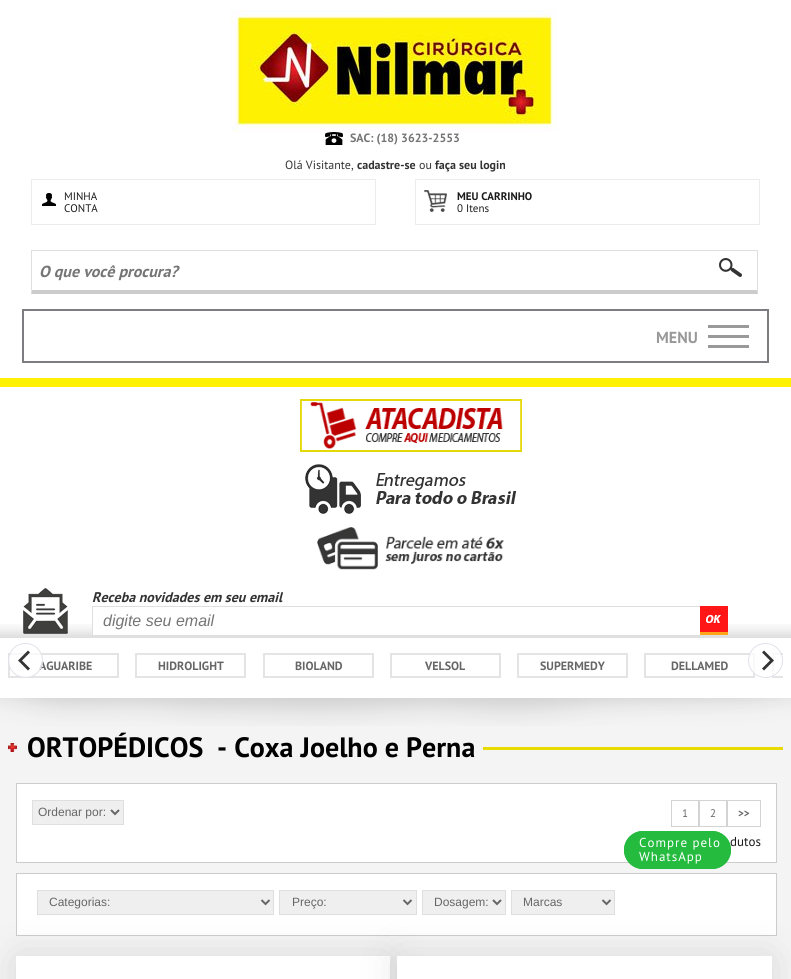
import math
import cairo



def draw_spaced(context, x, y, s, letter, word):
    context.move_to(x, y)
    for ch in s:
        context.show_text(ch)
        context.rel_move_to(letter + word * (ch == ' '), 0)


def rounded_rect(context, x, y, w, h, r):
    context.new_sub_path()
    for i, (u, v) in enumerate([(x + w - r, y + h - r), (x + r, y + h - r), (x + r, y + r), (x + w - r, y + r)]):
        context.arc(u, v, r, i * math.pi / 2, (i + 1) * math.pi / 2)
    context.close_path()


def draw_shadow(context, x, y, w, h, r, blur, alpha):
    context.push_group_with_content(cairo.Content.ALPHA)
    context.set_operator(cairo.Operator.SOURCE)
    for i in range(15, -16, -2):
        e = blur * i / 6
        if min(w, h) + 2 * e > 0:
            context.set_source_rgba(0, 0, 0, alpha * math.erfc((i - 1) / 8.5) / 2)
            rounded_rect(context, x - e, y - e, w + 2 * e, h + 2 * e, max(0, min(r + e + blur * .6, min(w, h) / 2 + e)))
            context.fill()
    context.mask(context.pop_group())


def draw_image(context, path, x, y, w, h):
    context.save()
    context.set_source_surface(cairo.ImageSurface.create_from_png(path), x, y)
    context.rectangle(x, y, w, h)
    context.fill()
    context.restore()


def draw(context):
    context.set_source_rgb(1, 1, 1)
    context.paint()
    draw_image(context, "images/1.png", 231, 10, 326, 122)
    draw_image(context, "images/2.png", 325, 132, 18, 13)
    context.rectangle(31.5, 179.5, 344, 45)
    context.set_source_rgb(236 / 255, 236 / 255, 236 / 255)
    context.set_line_width(1)
    context.stroke()
    draw_image(context, "images/3.png", 42, 193, 14, 13)
    context.rectangle(415.5, 179.5, 344, 45)
    context.stroke()
    draw_image(context, "images/4.png", 424, 190, 23, 22)
    context.set_source_rgb(223 / 255, 223 / 255, 223 / 255)
    context.rectangle(31, 250, 727, 1)
    context.fill()
    context.new_path()
    context.move_to(758, 250)
    context.line_to(758, 294)
    context.line_to(757, 290)
    context.line_to(757, 251)
    context.close_path()
    context.fill()
    context.set_source_rgb(204 / 255, 204 / 255, 204 / 255)
    context.new_path()
    context.move_to(758, 294)
    context.line_to(31, 294)
    context.line_to(32, 290)
    context.line_to(757, 290)
    context.close_path()
    context.fill()
    context.set_source_rgb(223 / 255, 223 / 255, 223 / 255)
    context.new_path()
    context.move_to(31, 294)
    context.line_to(31, 250)
    context.line_to(32, 251)
    context.line_to(32, 290)
    context.close_path()
    context.fill()
    draw_image(context, "images/5.png", 719, 258, 23, 19)
    context.rectangle(23, 310, 745, 52)
    context.set_source_rgb(125 / 255, 124 / 255, 129 / 255)
    context.set_line_width(2)
    context.stroke()
    draw_image(context, "images/6.png", 708, 325, 41, 23)
    context.set_source_rgb(1, 241 / 255, 2 / 255)
    context.rectangle(0, 378, 791, 9)
    context.fill()
    draw_image(context, "images/7.png", 0, 624, 791, 14)
    draw_image(context, "images/8.png", 300, 399, 222, 53)
    draw_image(context, "images/9.png", 305, 464, 211, 50)
    draw_image(context, "images/10.png", 317, 527, 187, 43)
    draw_image(context, "images/11.png", 23, 588, 45, 46)
    context.set_source_rgb(1, 1, 1)
    context.rectangle(93, 624, 607, 11)
    context.fill()
    context.rectangle(92.5, 606.5, 628, 29)
    context.set_source_rgb(223 / 255, 223 / 255, 223 / 255)
    context.set_line_width(1)
    context.stroke()
    draw_image(context, "images/12.png", 700, 606, 28, 29)
    context.rectangle(9, 654, 109, 23)
    context.set_source_rgb(228 / 255, 228 / 255, 228 / 255)
    context.set_line_width(2)
    context.stroke()
    context.rectangle(136, 654, 109, 23)
    context.stroke()
    context.rectangle(264, 654, 109, 23)
    context.stroke()
    context.rectangle(391, 654, 109, 23)
    context.stroke()
    context.rectangle(518, 654, 109, 23)
    context.stroke()
    context.rectangle(645, 654, 109, 23)
    context.stroke()
    context.save()
    context.rectangle(8, 653, 775, 25)
    context.clip()
    context.rectangle(773, 654, 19, 23)
    context.stroke()
    context.restore()
    context.set_source_rgba(1, 1, 1, 0.75)
    context.arc(765.5, 660.5, 17, 0, 2 * math.pi)
    context.fill_preserve()
    context.set_source_rgb(224 / 255, 226 / 255, 233 / 255)
    context.set_line_width(1)
    context.stroke()
    context.set_source_rgb(51 / 255, 51 / 255, 51 / 255)
    context.new_path()
    context.move_to(774, 660.5)
    context.line_to(764, 650.5)
    context.line_to(762, 652.5)
    context.line_to(770, 660.5)
    context.line_to(762, 668.5)
    context.line_to(764, 670.5)
    context.close_path()
    context.fill()
    context.set_source_rgb(244 / 255, 244 / 255, 244 / 255)
    context.rectangle(0, 698, 791, 281)
    context.fill()
    draw_image(context, "images/13.png", 0, 698, 791, 28)
    context.set_source_rgb(233 / 255, 219 / 255, 2 / 255)
    context.rectangle(483, 747, 300, 3)
    context.fill()
    draw_image(context, "images/14.png", 8, 743, 9, 9)
    context.set_source_rgb(1, 1, 1)
    context.rectangle(16.5, 783.5, 760, 79)
    context.fill_preserve()
    context.set_source_rgb(204 / 255, 204 / 255, 204 / 255)
    context.stroke()
    context.set_source_rgb(239 / 255, 239 / 255, 239 / 255)
    context.rectangle(32.5, 800.5, 91, 24)
    context.fill_preserve()
    context.set_source_rgb(223 / 255, 223 / 255, 223 / 255)
    context.stroke()
    context.new_path()
    context.move_to(111, 810)
    context.line_to(115, 814)
    context.line_to(119, 810)
    context.set_source_rgb(102 / 255, 102 / 255, 102 / 255)
    context.set_line_width(2)
    context.stroke()
    context.rectangle(671.5, 800.5, 27, 26)
    context.set_source_rgb(211 / 255, 211 / 255, 211 / 255)
    context.set_line_width(1)
    context.stroke()
    context.rectangle(699.5, 800.5, 27, 26)
    context.stroke()
    context.rectangle(727.5, 800.5, 33, 26)
    context.stroke()
    context.set_source_rgb(1, 1, 1)
    context.rectangle(16.5, 873.5, 760, 62)
    context.fill_preserve()
    context.set_source_rgb(204 / 255, 204 / 255, 204 / 255)
    context.stroke()
    context.set_source_rgb(239 / 255, 239 / 255, 239 / 255)
    context.rectangle(37.5, 890.5, 236, 24)
    context.fill_preserve()
    context.set_source_rgb(223 / 255, 223 / 255, 223 / 255)
    context.stroke()
    context.new_path()
    context.move_to(261.5, 900)
    context.line_to(265.5, 904)
    context.line_to(269.5, 900)
    context.set_source_rgb(102 / 255, 102 / 255, 102 / 255)
    context.set_line_width(2)
    context.stroke()
    context.set_source_rgb(239 / 255, 239 / 255, 239 / 255)
    context.rectangle(279.5, 890.5, 137, 24)
    context.fill_preserve()
    context.set_source_rgb(223 / 255, 223 / 255, 223 / 255)
    context.set_line_width(1)
    context.stroke()
    context.new_path()
    context.move_to(403.5, 900)
    context.line_to(407.5, 904)
    context.line_to(411.5, 900)
    context.set_source_rgb(102 / 255, 102 / 255, 102 / 255)
    context.set_line_width(2)
    context.stroke()
    context.set_source_rgb(239 / 255, 239 / 255, 239 / 255)
    context.rectangle(422.5, 890.5, 83, 24)
    context.fill_preserve()
    context.set_source_rgb(223 / 255, 223 / 255, 223 / 255)
    context.set_line_width(1)
    context.stroke()
    context.set_source_rgb(0, 0, 0)
    draw_shadow(context, 18, 958, 370, 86, 0, 21.5, 0.12)
    context.set_source_rgb(1, 1, 1)
    context.rectangle(16, 956, 374, 23)
    context.fill()
    context.new_path()
    context.move_to(493, 900)
    context.line_to(497, 904)
    context.line_to(501, 900)
    context.set_source_rgb(102 / 255, 102 / 255, 102 / 255)
    context.set_line_width(2)
    context.stroke()
    context.set_source_rgb(239 / 255, 239 / 255, 239 / 255)
    context.rectangle(511.5, 890.5, 103, 24)
    context.fill_preserve()
    context.set_source_rgb(223 / 255, 223 / 255, 223 / 255)
    context.set_line_width(1)
    context.stroke()
    context.new_path()
    context.move_to(602.5, 900)
    context.line_to(606.5, 904)
    context.line_to(610.5, 900)
    context.set_source_rgb(102 / 255, 102 / 255, 102 / 255)
    context.set_line_width(2)
    context.stroke()
    context.set_source_rgb(0, 0, 0)
    draw_shadow(context, 399, 958, 371, 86, 0, 21.5, 0.12)
    context.set_source_rgb(1, 1, 1)
    context.rectangle(397, 956, 375, 23)
    context.fill()
    context.select_font_face("PT Sans", cairo.FontSlant.NORMAL, cairo.FontWeight.BOLD)
    context.set_font_size(12)
    context.set_source_rgb(117 / 255, 117 / 255, 117 / 255)
    context.move_to(350, 142)
    context.show_text("SAC: (18) 3623-2553")
    context.select_font_face("PT Sans")
    context.set_source_rgb(51 / 255, 51 / 255, 51 / 255)
    context.move_to(285, 169)
    context.show_text("Olá Visitante,")
    context.select_font_face("PT Sans", cairo.FontSlant.NORMAL, cairo.FontWeight.BOLD)
    context.move_to(357, 169)
    context.show_text("cadastre-se")
    context.select_font_face("PT Sans")
    context.move_to(419, 169)
    context.show_text("ou")
    context.select_font_face("PT Sans", cairo.FontSlant.NORMAL, cairo.FontWeight.BOLD)
    context.move_to(435, 169)
    context.show_text("faça seu login")
    context.select_font_face("PT Sans")
    context.set_font_size(11)
    context.set_source_rgb(26 / 255, 26 / 255, 26 / 255)
    context.move_to(64, 200)
    context.show_text("MINHA")
    context.move_to(64, 212)
    context.show_text("CONTA")
    context.select_font_face("PT Sans", cairo.FontSlant.NORMAL, cairo.FontWeight.BOLD)
    context.move_to(457, 200)
    context.show_text("MEU CARRINHO")
    context.select_font_face("PT Sans")
    context.move_to(457, 212)
    context.show_text("0 Itens")
    context.select_font_face("PT Sans", cairo.FontSlant.ITALIC, cairo.FontWeight.BOLD)
    context.set_font_size(16)
    context.set_source_rgb(117 / 255, 117 / 255, 117 / 255)
    context.move_to(39, 277)
    context.show_text("O que você procura?")
    context.select_font_face("PT Sans", cairo.FontSlant.NORMAL, cairo.FontWeight.BOLD)
    context.set_source_rgb(153 / 255, 153 / 255, 153 / 255)
    context.move_to(656, 343)
    context.show_text("MENU")
    context.select_font_face("PT Sans", cairo.FontSlant.ITALIC, cairo.FontWeight.BOLD)
    context.set_font_size(14)
    context.set_source_rgb(51 / 255, 51 / 255, 51 / 255)
    context.move_to(92, 602)
    context.show_text("Receba novidades em seu email")
    context.select_font_face("Liberation Sans", cairo.FontSlant.ITALIC)
    context.set_font_size(16)
    context.set_source_rgb(117 / 255, 117 / 255, 117 / 255)
    context.move_to(103, 626)
    context.show_text("digite seu email")
    context.select_font_face("PT Sans", cairo.FontSlant.NORMAL, cairo.FontWeight.BOLD)
    context.set_font_size(12)
    context.set_source_rgb(102 / 255, 102 / 255, 102 / 255)
    context.move_to(39, 670)
    context.show_text("AGUARIBE")
    context.set_source_rgba(1, 1, 1, 0.75)
    context.new_path()
    context.arc(25.5, 660.5, 17, 0, 2 * math.pi)
    context.fill_preserve()
    context.set_source_rgb(224 / 255, 226 / 255, 233 / 255)
    context.set_line_width(1)
    context.stroke()
    context.set_source_rgb(51 / 255, 51 / 255, 51 / 255)
    context.new_path()
    context.move_to(18, 660.5)
    context.line_to(28, 670.5)
    context.line_to(30, 668.5)
    context.line_to(22, 660.5)
    context.line_to(30, 652.5)
    context.line_to(28, 650.5)
    context.close_path()
    context.fill()
    context.set_source_rgb(102 / 255, 102 / 255, 102 / 255)
    context.move_to(158, 670)
    context.show_text("HIDROLIGHT")
    context.move_to(295, 670)
    context.show_text("BIOLAND")
    context.move_to(425, 670)
    context.show_text("VELSOL")
    context.move_to(540, 670)
    context.show_text("SUPERMEDY")
    context.move_to(671, 670)
    context.show_text("DELLAMED")
    context.set_font_size(28)
    context.set_source_rgb(0, 0, 0)
    context.move_to(27, 757)
    context.show_text("ORTOPÉDICOS")
    context.move_to(217, 757)
    context.show_text("- Coxa Joelho e Perna")
    context.select_font_face("Liberation Sans")
    context.set_font_size(12)
    context.set_source_rgb(102 / 255, 102 / 255, 102 / 255)
    context.move_to(38, 816)
    context.show_text("Ordenar por:")
    context.select_font_face("PT Sans")
    context.set_font_size(11)
    context.move_to(682, 817)
    context.show_text("1")
    context.move_to(710, 817)
    context.show_text("2")
    context.select_font_face("PT Sans", cairo.FontSlant.NORMAL, cairo.FontWeight.BOLD)
    context.move_to(738, 817)
    context.show_text(">>")
    context.select_font_face("PT Sans")
    context.set_font_size(13)
    context.set_source_rgb(26 / 255, 26 / 255, 26 / 255)
    context.move_to(730, 846)
    context.show_text("dutos")
    context.select_font_face("Liberation Sans")
    context.set_font_size(12)
    context.set_source_rgb(102 / 255, 102 / 255, 102 / 255)
    context.move_to(49, 906)
    context.show_text("Categorias:")
    context.move_to(292, 906)
    context.show_text("Preço:")
    context.move_to(434, 906)
    context.show_text("Dosagem:")
    context.move_to(523, 906)
    context.show_text("Marcas")
    context.set_source_rgb(37 / 255, 187 / 255, 63 / 255)
    rounded_rect(context, 624, 831, 107, 38, 19)
    context.fill()
    rounded_rect(context, 626.5, 833.5, 102, 33, 16.5)
    context.set_line_width(5)
    context.stroke()
    context.select_font_face("PT Sans")
    context.set_font_size(13)
    context.set_source_rgb(1, 1, 1)
    draw_spaced(context, 639, 847, "Compre pelo", 1, 0)
    draw_spaced(context, 639, 861, "WhatsApp", 1, 0)


surface = cairo.ImageSurface(cairo.Format.RGB24, 791, 979)
context = cairo.Context(surface)
options = cairo.FontOptions()
options.set_hint_metrics(cairo.HintMetrics.OFF)
options.set_hint_style(cairo.HintStyle.NONE)
context.set_font_options(options)
context.set_miter_limit(4)
draw(context)
surface.write_to_png("out.png")
